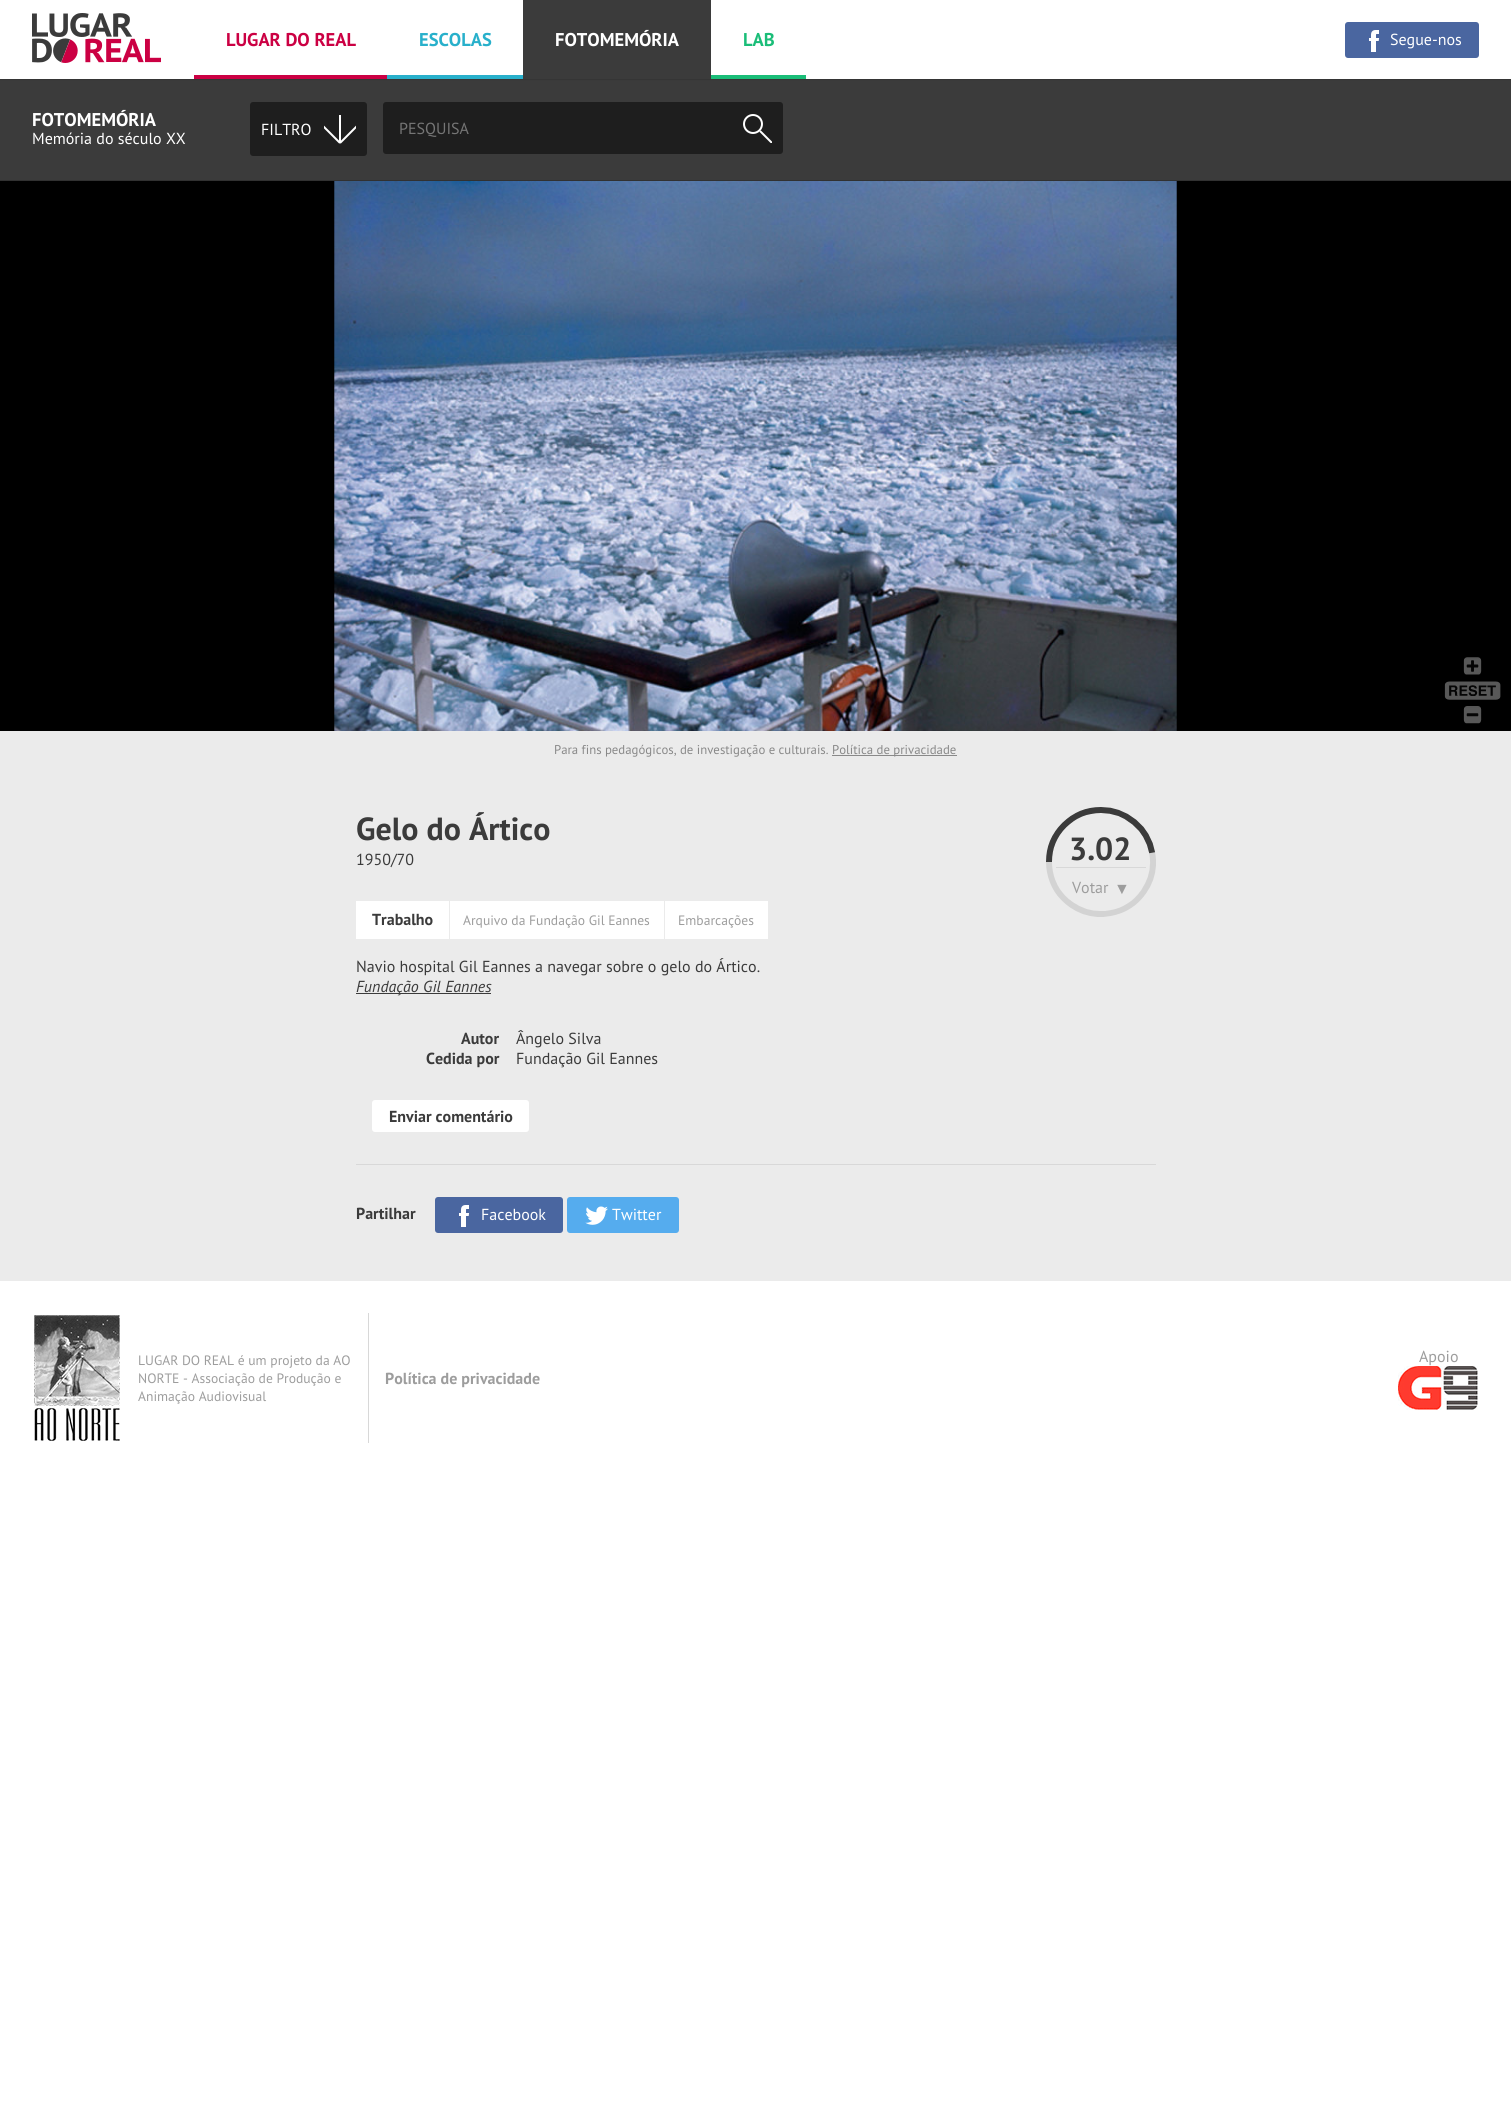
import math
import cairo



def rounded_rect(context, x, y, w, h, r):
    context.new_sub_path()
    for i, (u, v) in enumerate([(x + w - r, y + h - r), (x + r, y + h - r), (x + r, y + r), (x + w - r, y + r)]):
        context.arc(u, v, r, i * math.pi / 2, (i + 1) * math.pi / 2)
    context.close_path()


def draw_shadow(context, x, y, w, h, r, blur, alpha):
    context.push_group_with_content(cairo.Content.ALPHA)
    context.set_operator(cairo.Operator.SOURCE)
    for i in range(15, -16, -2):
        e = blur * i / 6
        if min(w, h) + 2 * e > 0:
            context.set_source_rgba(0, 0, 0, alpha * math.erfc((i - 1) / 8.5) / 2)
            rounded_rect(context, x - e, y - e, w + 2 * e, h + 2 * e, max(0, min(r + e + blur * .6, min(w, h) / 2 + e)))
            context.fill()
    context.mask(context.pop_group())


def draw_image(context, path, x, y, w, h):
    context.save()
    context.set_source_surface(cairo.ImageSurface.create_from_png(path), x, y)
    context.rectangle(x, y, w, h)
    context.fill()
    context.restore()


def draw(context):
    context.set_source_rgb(1, 1, 1)
    context.paint()
    context.set_source_rgb(59 / 255, 59 / 255, 59 / 255)
    context.rectangle(0, 79, 1511, 101)
    context.fill()
    context.set_source_rgb(0, 0, 0)
    draw_shadow(context, 0, 0, 1511, 79, 0, 1, 0.3)
    context.set_source_rgb(1, 1, 1)
    context.rectangle(0, 0, 1511, 79)
    context.fill()
    draw_image(context, "images/1.png", 32, 13, 129, 50)
    context.set_source_rgb(203 / 255, 0, 67 / 255)
    context.rectangle(194, 75, 193, 4)
    context.fill()
    context.set_source_rgb(40 / 255, 176 / 255, 203 / 255)
    context.rectangle(387, 75, 136, 4)
    context.fill()
    context.set_source_rgb(59 / 255, 59 / 255, 59 / 255)
    context.rectangle(523, 0, 188, 79)
    context.fill()
    context.set_source_rgb(26 / 255, 189 / 255, 120 / 255)
    context.rectangle(711, 75, 95, 4)
    context.fill()
    context.set_source_rgb(74 / 255, 102 / 255, 160 / 255)
    rounded_rect(context, 1345, 22, 134, 36, 3)
    context.fill()
    draw_image(context, "images/2.png", 1369, 30, 11, 22)
    context.set_source_rgb(49 / 255, 49 / 255, 49 / 255)
    context.rectangle(0, 180, 1511, 1)
    context.fill()
    context.set_source_rgb(30 / 255, 30 / 255, 30 / 255)
    rounded_rect(context, 250, 102, 117, 54, 3)
    context.fill()
    context.set_source_rgb(1, 1, 1)
    context.rectangle(339, 115, 2, 28)
    context.fill()
    context.save()
    context.rectangle(324, 113, 32, 32)
    context.clip()
    context.new_path()
    context.move_to(340, 143)
    context.line_to(320, 123)
    context.move_to(340, 143)
    context.line_to(360, 123)
    context.stroke()
    context.restore()
    context.set_source_rgb(30 / 255, 30 / 255, 30 / 255)
    rounded_rect(context, 383, 102, 400, 52, 3)
    context.fill()
    context.save()
    context.rectangle(740, 111, 32, 32)
    context.clip()
    context.new_path()
    context.move_to(760, 131)
    context.line_to(780, 151)
    context.set_source_rgb(1, 1, 1)
    context.stroke()
    context.restore()
    context.arc(753, 124, 9, 0, 2 * math.pi)
    context.set_source_rgb(1, 1, 1)
    context.stroke()
    context.set_source_rgb(235 / 255, 235 / 255, 235 / 255)
    context.rectangle(0, 731, 1511, 550)
    context.fill()
    context.set_source_rgb(0, 0, 0)
    context.rectangle(0, 181, 1511, 550)
    context.fill()
    draw_image(context, "images/3.png", 334, 181, 1167, 550)
    context.set_source_rgb(137 / 255, 137 / 255, 137 / 255)
    context.rectangle(832, 755, 125, 1)
    context.fill()
    draw_image(context, "images/4.png", 1046, 807, 110, 110)
    context.set_source_rgb(216 / 255, 216 / 255, 216 / 255)
    context.rectangle(1056, 867, 90, 1)
    context.fill()
    context.set_source_rgb(1, 1, 1)
    context.rectangle(356, 901, 93, 38)
    context.fill()
    context.rectangle(450, 901, 214, 38)
    context.fill()
    context.rectangle(665, 901, 103, 38)
    context.fill()
    context.set_source_rgb(59 / 255, 59 / 255, 59 / 255)
    context.rectangle(356, 993, 135, 1)
    context.fill()
    context.set_source_rgb(1, 1, 1)
    rounded_rect(context, 372, 1100, 157, 32, 3)
    context.fill()
    context.set_source_rgb(216 / 255, 216 / 255, 216 / 255)
    context.rectangle(356, 1164, 800, 1)
    context.fill()
    context.set_source_rgb(74 / 255, 102 / 255, 160 / 255)
    rounded_rect(context, 435, 1197, 128, 36, 3)
    context.fill()
    draw_image(context, "images/2.png", 459, 1205, 11, 22)
    context.set_source_rgb(85 / 255, 172 / 255, 238 / 255)
    rounded_rect(context, 567, 1197, 112, 36, 3)
    context.fill()
    draw_image(context, "images/5.png", 585, 1206, 23, 19)
    context.set_source_rgb(216 / 255, 216 / 255, 216 / 255)
    context.rectangle(368, 1313, 1, 130)
    context.fill()
    draw_image(context, "images/6.png", 34, 1315, 86, 126)
    draw_image(context, "images/7.png", 1398, 1366, 80, 44)
    context.select_font_face("PT Sans", cairo.FontSlant.NORMAL, cairo.FontWeight.BOLD)
    context.set_font_size(18.5)
    context.set_source_rgb(203 / 255, 0, 67 / 255)
    context.move_to(226, 46)
    context.show_text("LUGAR DO REAL")
    context.set_source_rgb(40 / 255, 176 / 255, 203 / 255)
    context.move_to(419, 46)
    context.show_text("ESCOLAS")
    context.set_source_rgb(1, 1, 1)
    context.move_to(555, 46)
    context.show_text("FOTOMEMÓRIA")
    context.set_source_rgb(26 / 255, 189 / 255, 120 / 255)
    context.move_to(743, 46)
    context.show_text("LAB")
    context.select_font_face("PT Sans")
    context.set_font_size(16)
    context.set_source_rgb(1, 1, 1)
    context.move_to(1390, 45)
    context.show_text("Segue-nos")
    context.select_font_face("PT Sans", cairo.FontSlant.NORMAL, cairo.FontWeight.BOLD)
    context.set_font_size(18.5)
    context.move_to(32, 126)
    context.show_text("FOTOMEMÓRIA")
    context.select_font_face("PT Sans")
    context.set_font_size(16)
    context.move_to(32, 144)
    context.show_text("Memória do século XX")
    context.move_to(261, 135)
    context.show_text("FILTRO")
    context.set_source_rgb(117 / 255, 117 / 255, 117 / 255)
    context.move_to(399, 134)
    context.show_text("PESQUISA")
    context.set_font_size(12.8)
    context.set_source_rgb(137 / 255, 137 / 255, 137 / 255)
    context.move_to(554, 754)
    context.show_text("Para fins pedagógicos, de investigação e culturais.")
    context.move_to(832, 754)
    context.show_text("Política de privacidade")
    context.select_font_face("PT Sans", cairo.FontSlant.NORMAL, cairo.FontWeight.BOLD)
    context.set_font_size(32)
    context.set_source_rgb(59 / 255, 59 / 255, 59 / 255)
    context.move_to(356, 840)
    context.show_text("Gelo do Ártico")
    context.select_font_face("PT Sans")
    context.set_font_size(16)
    context.move_to(356, 865)
    context.show_text("1950/70")
    context.select_font_face("PT Sans", cairo.FontSlant.NORMAL, cairo.FontWeight.BOLD)
    context.set_font_size(32)
    context.move_to(1069, 860)
    context.show_text("3.02")
    context.select_font_face("PT Sans")
    context.set_font_size(16)
    context.set_source_rgb(157 / 255, 157 / 255, 157 / 255)
    context.move_to(1072, 893)
    context.show_text("Votar")
    context.select_font_face("Liberation Sans")
    context.move_to(1114, 894)
    context.show_text("▼")
    context.select_font_face("PT Sans", cairo.FontSlant.NORMAL, cairo.FontWeight.BOLD)
    context.set_source_rgb(59 / 255, 59 / 255, 59 / 255)
    context.move_to(372, 925)
    context.show_text("Trabalho")
    context.select_font_face("PT Sans")
    context.set_font_size(13.6)
    context.set_source_rgb(157 / 255, 157 / 255, 157 / 255)
    context.move_to(463, 925)
    context.show_text("Arquivo da Fundação Gil Eannes")
    context.move_to(678, 925)
    context.show_text("Embarcações")
    context.set_font_size(16)
    context.set_source_rgb(59 / 255, 59 / 255, 59 / 255)
    context.move_to(356, 972)
    context.show_text("Navio hospital Gil Eannes a navegar sobre o gelo do Ártico.")
    context.select_font_face("PT Sans", cairo.FontSlant.ITALIC)
    context.move_to(356, 992)
    context.show_text("Fundação Gil Eannes")
    context.select_font_face("PT Sans", cairo.FontSlant.NORMAL, cairo.FontWeight.BOLD)
    context.move_to(461, 1044)
    context.show_text("Autor")
    context.select_font_face("PT Sans")
    context.move_to(516, 1044)
    context.show_text("Ângelo Silva")
    context.select_font_face("PT Sans", cairo.FontSlant.NORMAL, cairo.FontWeight.BOLD)
    context.move_to(426, 1064)
    context.show_text("Cedida por")
    context.select_font_face("PT Sans")
    context.move_to(516, 1064)
    context.show_text("Fundação Gil Eannes")
    context.select_font_face("PT Sans", cairo.FontSlant.NORMAL, cairo.FontWeight.BOLD)
    context.move_to(389, 1122)
    context.show_text("Enviar comentário")
    context.move_to(356, 1219)
    context.show_text("Partilhar")
    context.select_font_face("PT Sans")
    context.set_source_rgb(1, 1, 1)
    context.move_to(481, 1220)
    context.show_text("Facebook")
    context.move_to(612, 1220)
    context.show_text("Twitter")
    context.set_font_size(13.6)
    context.set_source_rgb(157 / 255, 157 / 255, 157 / 255)
    context.move_to(138, 1365)
    context.show_text("LUGAR DO REAL é um projeto da AO")
    context.move_to(138, 1383)
    context.show_text("NORTE - Associação de Produção e")
    context.move_to(138, 1401)
    context.show_text("Animação Audiovisual")
    context.select_font_face("PT Sans", cairo.FontSlant.NORMAL, cairo.FontWeight.BOLD)
    context.set_font_size(16)
    context.move_to(385, 1384)
    context.show_text("Política de privacidade")
    context.select_font_face("PT Sans")
    context.move_to(1419, 1362)
    context.show_text("Apoio")


surface = cairo.ImageSurface(cairo.Format.RGB24, 1511, 2105)
context = cairo.Context(surface)
options = cairo.FontOptions()
options.set_hint_metrics(cairo.HintMetrics.OFF)
options.set_hint_style(cairo.HintStyle.NONE)
context.set_font_options(options)
context.set_miter_limit(4)
draw(context)
surface.write_to_png("out.png")
